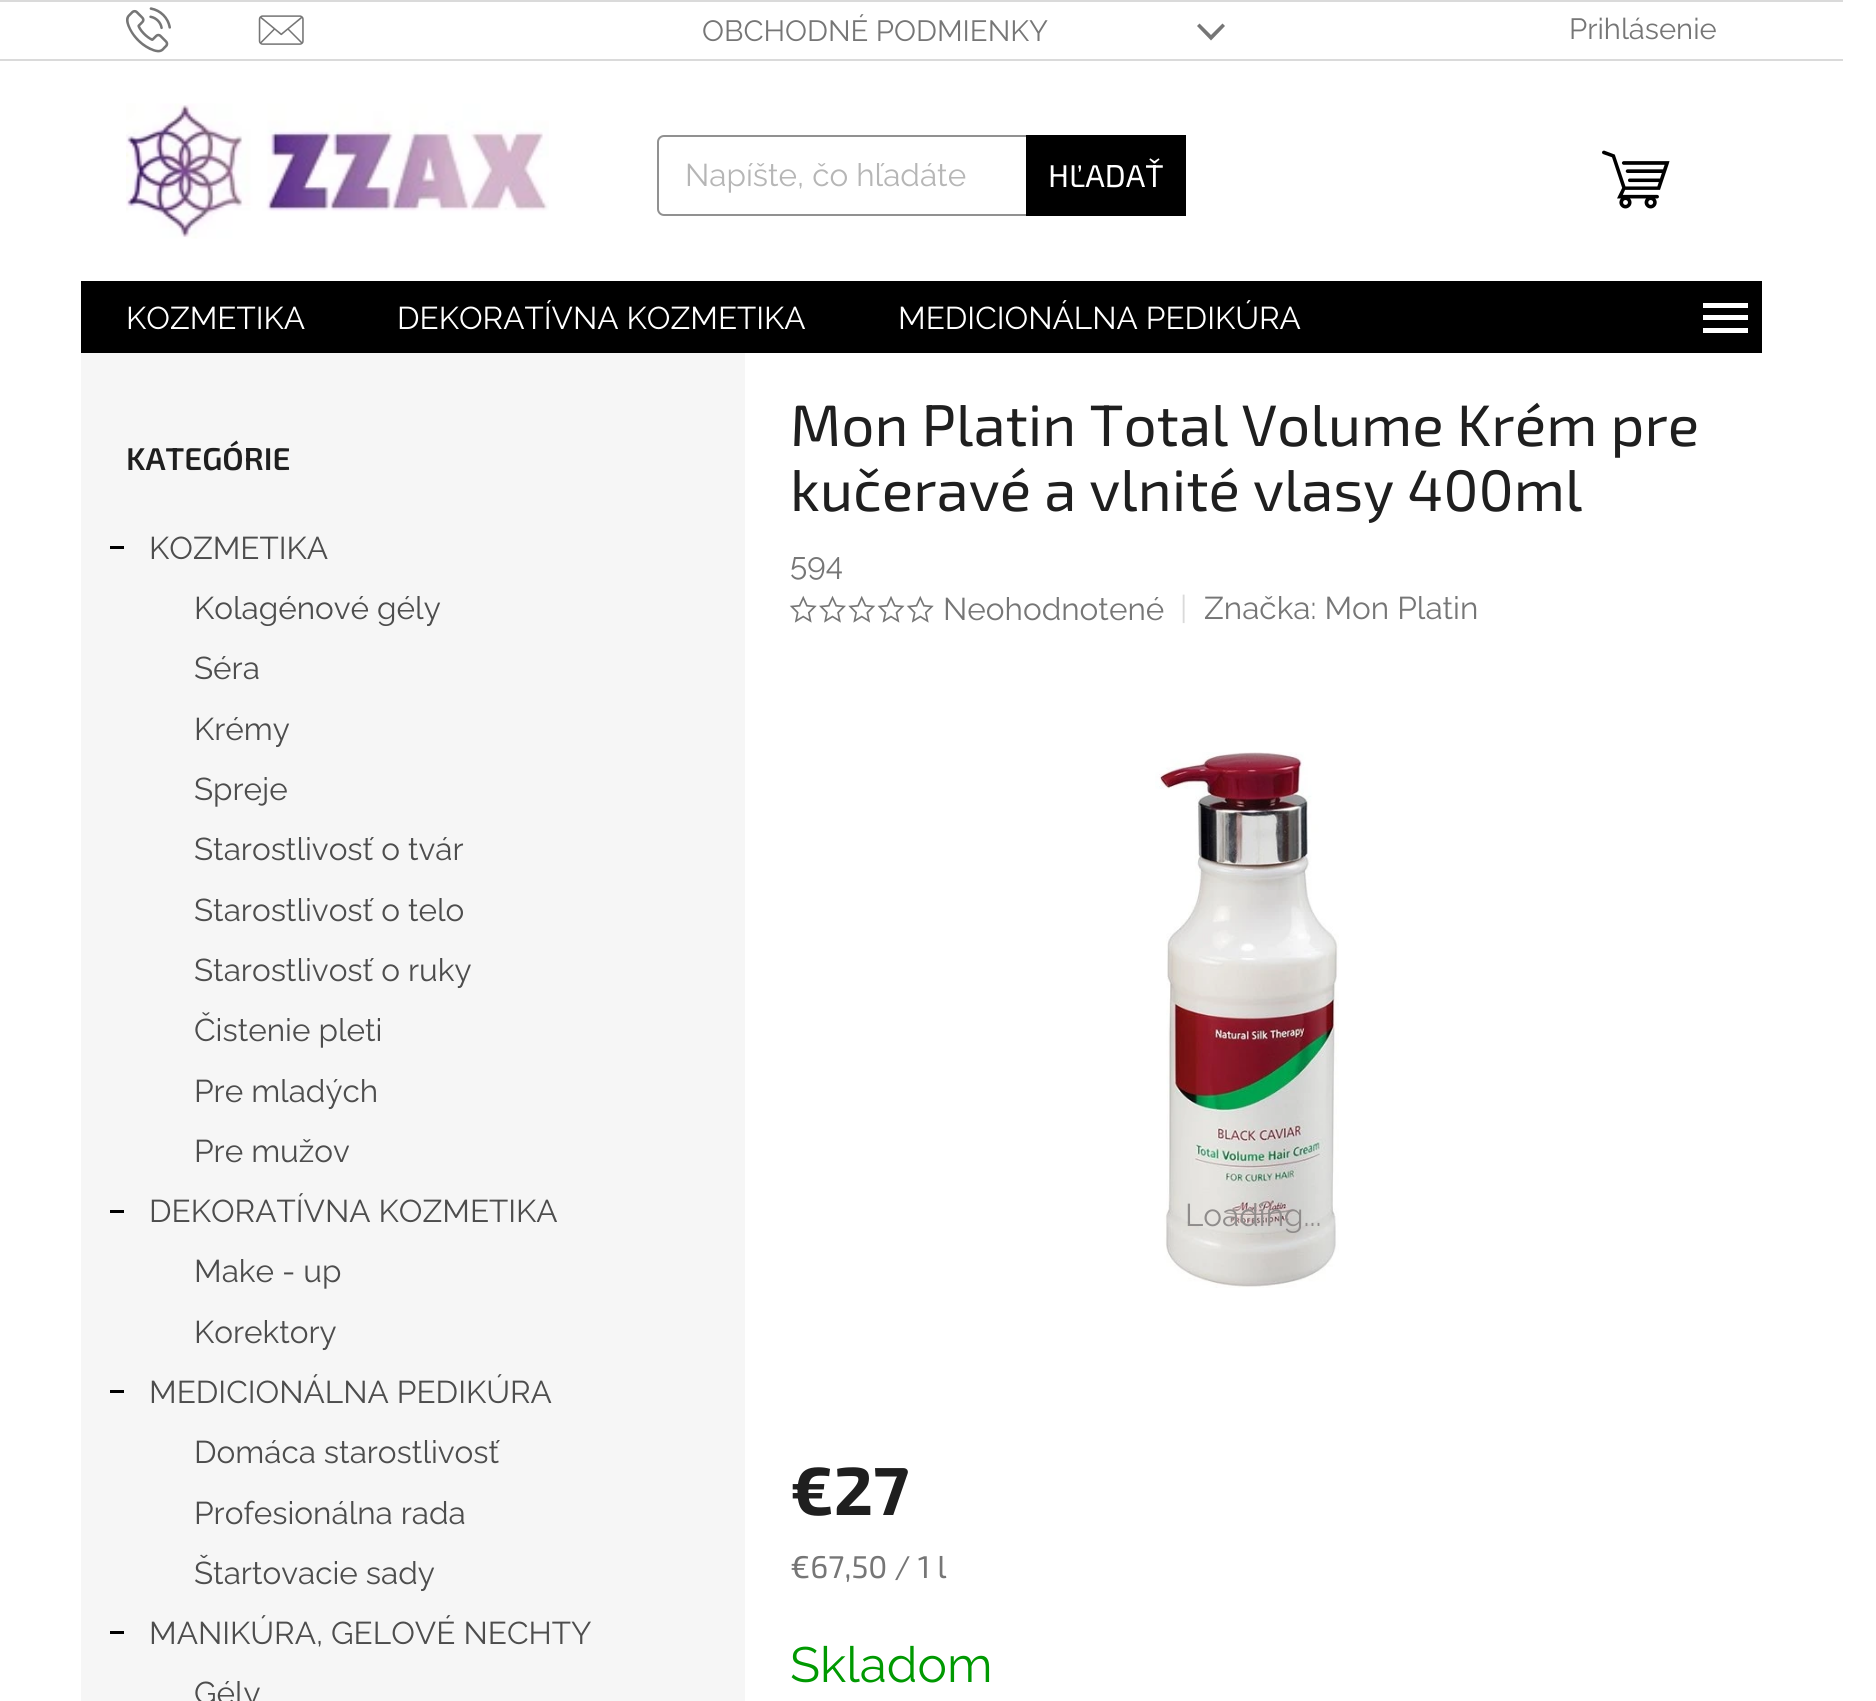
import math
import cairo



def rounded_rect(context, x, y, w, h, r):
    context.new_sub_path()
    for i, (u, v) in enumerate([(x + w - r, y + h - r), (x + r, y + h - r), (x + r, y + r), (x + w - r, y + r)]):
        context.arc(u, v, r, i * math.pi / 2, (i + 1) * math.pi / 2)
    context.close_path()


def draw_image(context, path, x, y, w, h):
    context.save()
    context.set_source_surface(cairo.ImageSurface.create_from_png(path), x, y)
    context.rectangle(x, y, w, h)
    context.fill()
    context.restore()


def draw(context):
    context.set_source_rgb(1, 1, 1)
    context.paint()
    context.set_source_rgb(218 / 255, 218 / 255, 218 / 255)
    context.rectangle(0, 0, 1843, 2)
    context.fill()
    context.rectangle(0, 59, 1843, 2)
    context.fill()
    draw_image(context, "images/1.png", 126, 7, 45, 46)
    draw_image(context, "images/2.png", 258, 15, 46, 30)
    context.set_source_rgb(118 / 255, 118 / 255, 118 / 255)
    context.new_path()
    context.move_to(1197, 26)
    context.line_to(1199.5, 23.5)
    context.line_to(1211, 35)
    context.line_to(1222.5, 23.5)
    context.line_to(1225, 26)
    context.line_to(1211, 40.5)
    context.close_path()
    context.fill()
    draw_image(context, "images/3.png", 126, 103, 423, 136)
    rounded_rect(context, 658, 136, 527, 79, 6)
    context.set_source_rgb(145 / 255, 145 / 255, 145 / 255)
    context.stroke()
    context.set_source_rgb(0, 0, 0)
    context.rectangle(1026, 135, 160, 81)
    context.fill()
    draw_image(context, "images/4.png", 1602, 150, 68, 59)
    context.rectangle(81, 281, 1681, 72)
    context.fill()
    context.set_source_rgb(1, 1, 1)
    context.new_path()
    context.move_to(1703, 333)
    context.line_to(1748, 333)
    context.line_to(1748, 328)
    context.line_to(1703, 328)
    context.close_path()
    context.move_to(1703, 320)
    context.line_to(1748, 320)
    context.line_to(1748, 315)
    context.line_to(1703, 315)
    context.close_path()
    context.move_to(1703, 303)
    context.line_to(1703, 308)
    context.line_to(1748, 308)
    context.line_to(1748, 303)
    context.close_path()
    context.fill()
    context.set_source_rgb(246 / 255, 246 / 255, 246 / 255)
    context.rectangle(81, 353, 664, 1348)
    context.fill()
    context.set_source_rgb(0, 0, 0)
    context.rectangle(110, 546, 14, 3)
    context.fill()
    context.rectangle(110, 1210, 14, 3)
    context.fill()
    context.rectangle(110, 1390, 14, 3)
    context.fill()
    context.rectangle(110, 1631, 14, 3)
    context.fill()
    draw_image(context, "images/5.png", 789, 595, 28, 28)
    draw_image(context, "images/6.png", 819, 595, 27, 28)
    draw_image(context, "images/7.png", 848, 595, 28, 28)
    draw_image(context, "images/8.png", 877, 596, 28, 27)
    draw_image(context, "images/5.png", 906, 595, 28, 28)
    draw_image(context, "images/9.png", 1155, 752, 184, 536)
    context.select_font_face("Raleway")
    context.set_font_size(29.25)
    context.set_source_rgb(118 / 255, 118 / 255, 118 / 255)
    context.move_to(702, 41)
    context.show_text("OBCHODNÉ PODMIENKY")
    context.move_to(1569, 39)
    context.show_text("Prihlásenie")
    context.set_font_size(31.5)
    context.set_source_rgb(182 / 255, 182 / 255, 182 / 255)
    context.move_to(685, 186)
    context.show_text("Napíšte, čo hľadáte")
    context.select_font_face("Exo 2")
    context.set_source_rgb(1, 1, 1)
    context.move_to(1048, 187)
    context.show_text("HĽADAŤ")
    context.select_font_face("Raleway")
    context.move_to(126, 329)
    context.show_text("KOZMETIKA")
    context.move_to(397, 329)
    context.show_text("DEKORATÍVNA KOZMETIKA")
    context.move_to(898, 329)
    context.show_text("MEDICIONÁLNA PEDIKÚRA")
    context.select_font_face("Exo 2 SemiBold")
    context.set_source_rgb(31 / 255, 31 / 255, 31 / 255)
    context.move_to(126, 470)
    context.show_text("KATEGÓRIE")
    context.select_font_face("Raleway")
    context.set_source_rgb(77 / 255, 77 / 255, 77 / 255)
    context.move_to(149, 559)
    context.show_text("KOZMETIKA")
    context.move_to(194, 619)
    context.show_text("Kolagénové gély")
    context.move_to(194, 679)
    context.show_text("Séra")
    context.move_to(194, 740)
    context.show_text("Krémy")
    context.move_to(194, 800)
    context.show_text("Spreje")
    context.move_to(194, 860)
    context.show_text("Starostlivosť o tvár")
    context.move_to(194, 921)
    context.show_text("Starostlivosť o telo")
    context.move_to(194, 981)
    context.show_text("Starostlivosť o ruky")
    context.move_to(194, 1041)
    context.show_text("Čistenie pleti")
    context.move_to(194, 1102)
    context.show_text("Pre mladých")
    context.move_to(194, 1162)
    context.show_text("Pre mužov")
    context.move_to(149, 1222)
    context.show_text("DEKORATÍVNA KOZMETIKA")
    context.move_to(194, 1282)
    context.show_text("Make - up")
    context.move_to(194, 1343)
    context.show_text("Korektory")
    context.move_to(149, 1403)
    context.show_text("MEDICIONÁLNA PEDIKÚRA")
    context.move_to(194, 1463)
    context.show_text("Domáca starostlivosť")
    context.move_to(194, 1524)
    context.show_text("Profesionálna rada")
    context.move_to(194, 1584)
    context.show_text("Štartovacie sady")
    context.move_to(149, 1644)
    context.show_text("MANIKÚRA, GELOVÉ NECHTY")
    context.move_to(194, 1704)
    context.show_text("Gély")
    context.select_font_face("Exo 2")
    context.set_font_size(58.5)
    context.set_source_rgb(31 / 255, 31 / 255, 31 / 255)
    context.move_to(790, 446)
    context.show_text("Mon Platin Total Volume Krém pre")
    context.move_to(790, 511)
    context.show_text("kučeravé a vlnité vlasy 400ml")
    context.select_font_face("Raleway")
    context.set_font_size(31.5)
    context.set_source_rgb(118 / 255, 118 / 255, 118 / 255)
    context.move_to(790, 575)
    context.show_text("594")
    context.move_to(943, 620)
    context.show_text("Neohodnotené")
    context.set_source_rgb(218 / 255, 218 / 255, 218 / 255)
    context.move_to(1180, 619)
    context.show_text("|")
    context.set_source_rgb(118 / 255, 118 / 255, 118 / 255)
    context.move_to(1204, 619)
    context.show_text("Značka: Mon Platin")
    context.set_source_rgb(143 / 255, 140 / 255, 139 / 255)
    context.move_to(1185, 1226)
    context.show_text("Loading...")
    context.select_font_face("Exo 2", cairo.FontSlant.NORMAL, cairo.FontWeight.BOLD)
    context.set_font_size(68)
    context.set_source_rgb(31 / 255, 31 / 255, 31 / 255)
    context.move_to(790, 1515)
    context.show_text("€27")
    context.select_font_face("Exo 2")
    context.set_font_size(31.5)
    context.set_source_rgb(118 / 255, 118 / 255, 118 / 255)
    context.move_to(790, 1578)
    context.show_text("€67,50 / 1 l")
    context.select_font_face("Raleway")
    context.set_font_size(49.5)
    context.set_source_rgb(0, 153 / 255, 1 / 255)
    context.move_to(790, 1682)
    context.show_text("Skladom")


surface = cairo.ImageSurface(cairo.Format.RGB24, 1876, 1701)
context = cairo.Context(surface)
options = cairo.FontOptions()
options.set_hint_metrics(cairo.HintMetrics.OFF)
options.set_hint_style(cairo.HintStyle.NONE)
context.set_font_options(options)
context.set_miter_limit(4)
draw(context)
surface.write_to_png("out.png")
